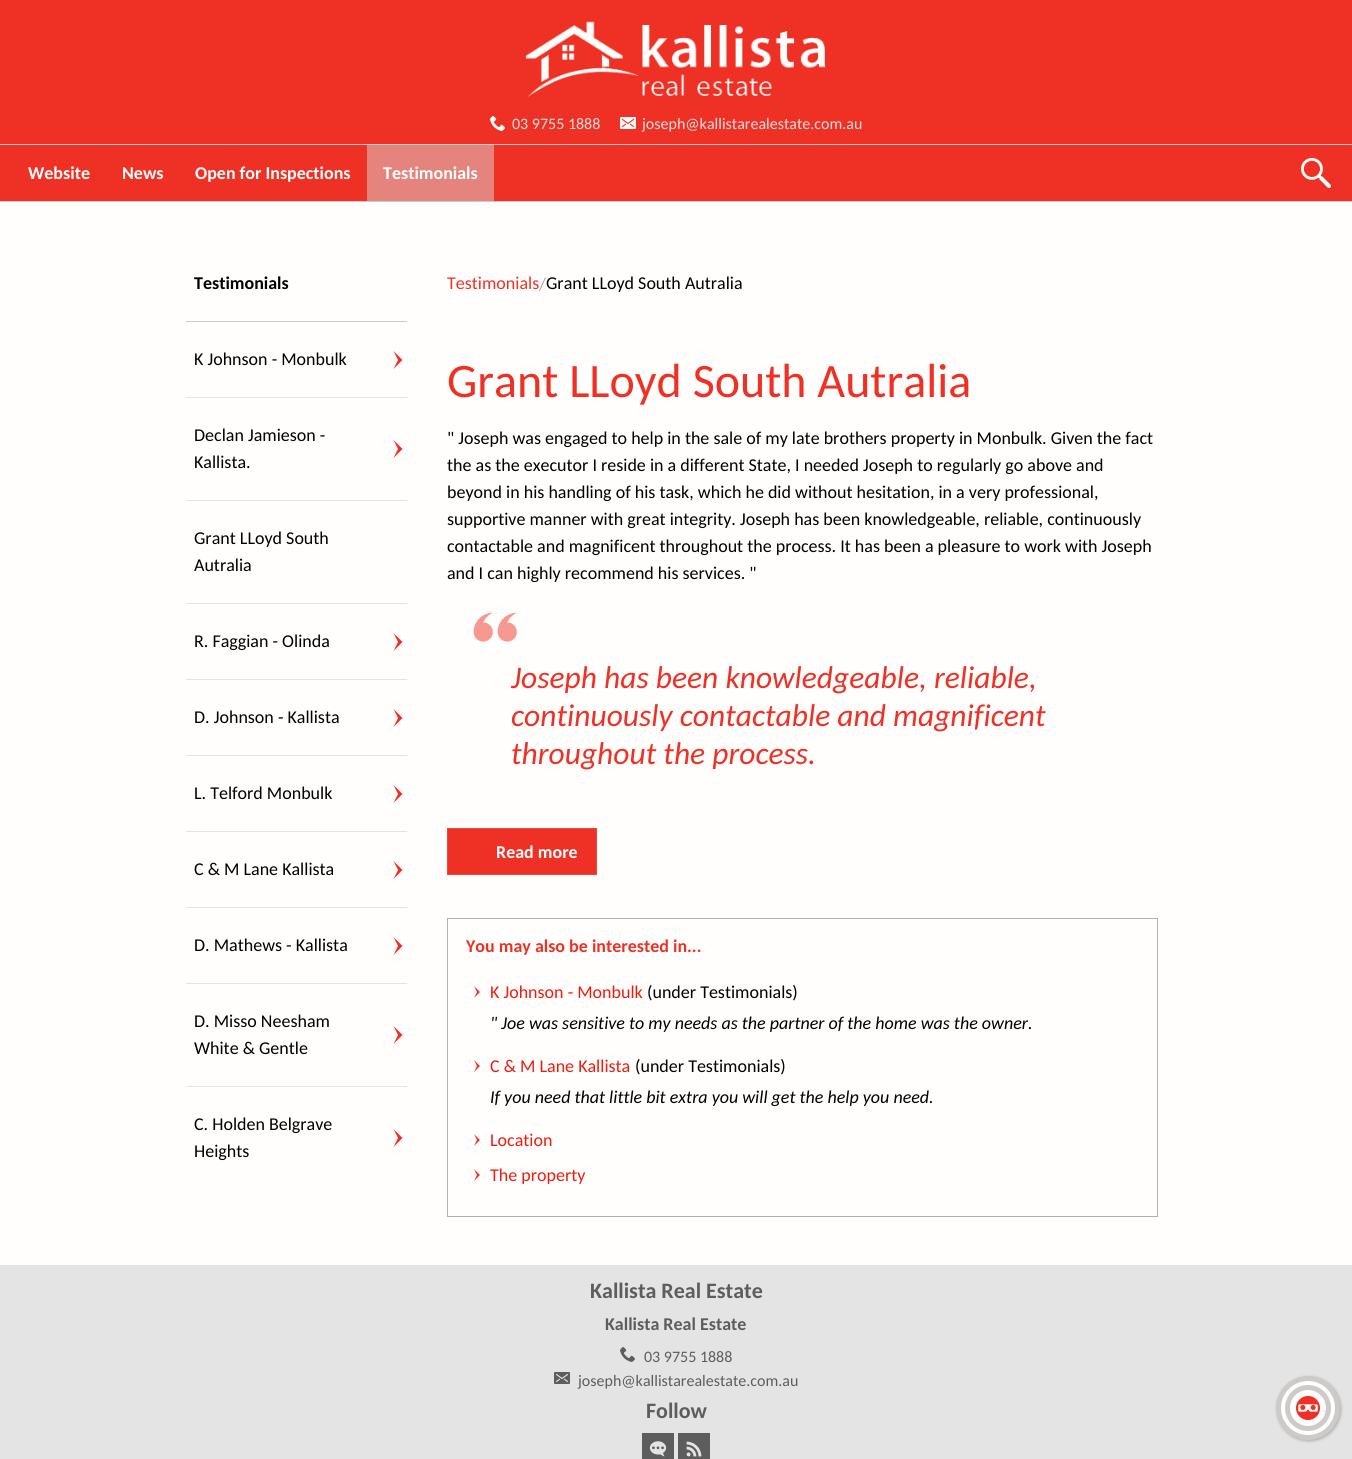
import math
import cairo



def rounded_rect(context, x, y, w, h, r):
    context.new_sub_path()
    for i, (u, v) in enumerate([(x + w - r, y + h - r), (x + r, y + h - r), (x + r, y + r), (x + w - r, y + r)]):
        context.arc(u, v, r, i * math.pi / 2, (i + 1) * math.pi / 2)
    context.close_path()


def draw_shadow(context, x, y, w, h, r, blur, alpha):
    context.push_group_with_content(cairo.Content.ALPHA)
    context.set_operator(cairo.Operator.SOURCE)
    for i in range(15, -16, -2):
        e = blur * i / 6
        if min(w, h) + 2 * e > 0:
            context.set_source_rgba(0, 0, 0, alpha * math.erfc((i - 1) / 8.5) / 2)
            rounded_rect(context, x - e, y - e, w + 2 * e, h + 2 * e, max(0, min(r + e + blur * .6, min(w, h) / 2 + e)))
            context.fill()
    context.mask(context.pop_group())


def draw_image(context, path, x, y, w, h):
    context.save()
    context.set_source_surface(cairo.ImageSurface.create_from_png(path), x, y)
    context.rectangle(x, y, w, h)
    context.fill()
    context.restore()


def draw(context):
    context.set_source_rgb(239 / 255, 49 / 255, 37 / 255)
    context.paint()
    draw_image(context, "images/1.png", 525, 21, 301, 77)
    draw_image(context, "images/2.png", 490, 116, 15, 15)
    draw_image(context, "images/3.png", 620, 117, 16, 12)
    context.set_source_rgb(204 / 255, 203 / 255, 201 / 255)
    context.rectangle(0, 144, 1352, 1)
    context.fill()
    context.rectangle(0, 201, 1352, 1)
    context.fill()
    context.set_source_rgb(228 / 255, 132 / 255, 125 / 255)
    context.rectangle(367, 145, 127, 56)
    context.fill()
    draw_image(context, "images/4.png", 1301, 157, 30, 31)
    context.set_source_rgb(1, 254 / 255, 252 / 255)
    context.rectangle(0, 202, 1352, 1063)
    context.fill()
    context.set_source_rgb(204 / 255, 203 / 255, 201 / 255)
    context.rectangle(186, 321, 221, 1)
    context.fill()
    context.set_source_rgb(239 / 255, 49 / 255, 37 / 255)
    context.new_path()
    context.move_to(393.5, 369)
    context.line_to(402.5, 360)
    context.line_to(393.5, 351)
    context.line_to(398, 360)
    context.close_path()
    context.fill()
    context.set_source_rgb(229 / 255, 228 / 255, 226 / 255)
    context.rectangle(186, 397, 221, 1)
    context.fill()
    context.set_source_rgb(239 / 255, 49 / 255, 37 / 255)
    context.new_path()
    context.move_to(393.5, 458)
    context.line_to(402.5, 449)
    context.line_to(393.5, 440)
    context.line_to(398, 449)
    context.close_path()
    context.fill()
    context.set_source_rgb(229 / 255, 228 / 255, 226 / 255)
    context.rectangle(186, 500, 221, 1)
    context.fill()
    context.rectangle(186, 603, 221, 1)
    context.fill()
    context.set_source_rgb(239 / 255, 49 / 255, 37 / 255)
    context.new_path()
    context.move_to(393.5, 651)
    context.line_to(402.5, 642)
    context.line_to(393.5, 633)
    context.line_to(398, 642)
    context.close_path()
    context.fill()
    context.set_source_rgb(229 / 255, 228 / 255, 226 / 255)
    context.rectangle(186, 679, 221, 1)
    context.fill()
    context.set_source_rgb(239 / 255, 49 / 255, 37 / 255)
    context.new_path()
    context.move_to(393.5, 727)
    context.line_to(402.5, 718)
    context.line_to(393.5, 709)
    context.line_to(398, 718)
    context.close_path()
    context.fill()
    context.set_source_rgb(229 / 255, 228 / 255, 226 / 255)
    context.rectangle(186, 755, 221, 1)
    context.fill()
    context.set_source_rgb(239 / 255, 49 / 255, 37 / 255)
    context.new_path()
    context.move_to(393.5, 803)
    context.line_to(402.5, 794)
    context.line_to(393.5, 785)
    context.line_to(398, 794)
    context.close_path()
    context.fill()
    context.set_source_rgb(229 / 255, 228 / 255, 226 / 255)
    context.rectangle(186, 831, 221, 1)
    context.fill()
    context.set_source_rgb(239 / 255, 49 / 255, 37 / 255)
    context.new_path()
    context.move_to(393.5, 879)
    context.line_to(402.5, 870)
    context.line_to(393.5, 861)
    context.line_to(398, 870)
    context.close_path()
    context.fill()
    context.set_source_rgb(229 / 255, 228 / 255, 226 / 255)
    context.rectangle(186, 907, 221, 1)
    context.fill()
    context.set_source_rgb(239 / 255, 49 / 255, 37 / 255)
    context.new_path()
    context.move_to(393.5, 955)
    context.line_to(402.5, 946)
    context.line_to(393.5, 937)
    context.line_to(398, 946)
    context.close_path()
    context.fill()
    context.set_source_rgb(229 / 255, 228 / 255, 226 / 255)
    context.rectangle(186, 983, 221, 1)
    context.fill()
    context.set_source_rgb(239 / 255, 49 / 255, 37 / 255)
    context.new_path()
    context.move_to(393.5, 1044)
    context.line_to(402.5, 1035)
    context.line_to(393.5, 1026)
    context.line_to(398, 1035)
    context.close_path()
    context.fill()
    context.set_source_rgb(229 / 255, 228 / 255, 226 / 255)
    context.rectangle(186, 1086, 221, 1)
    context.fill()
    context.set_source_rgb(239 / 255, 49 / 255, 37 / 255)
    context.new_path()
    context.move_to(393.5, 1147)
    context.line_to(402.5, 1138)
    context.line_to(393.5, 1129)
    context.line_to(398, 1138)
    context.close_path()
    context.fill()
    draw_image(context, "images/5.png", 473, 612, 44, 30)
    context.rectangle(447.5, 828.5, 149, 46)
    context.fill_preserve()
    context.set_source_rgb(240 / 255, 69 / 255, 58 / 255)
    context.set_line_width(1)
    context.stroke()
    context.rectangle(447.5, 918.5, 710, 298)
    context.set_source_rgb(178 / 255, 177 / 255, 175 / 255)
    context.stroke()
    draw_image(context, "images/6.png", 474, 986, 6, 12)
    draw_image(context, "images/6.png", 474, 1060, 6, 12)
    draw_image(context, "images/6.png", 474, 1134, 6, 12)
    draw_image(context, "images/6.png", 474, 1169, 6, 12)
    context.set_source_rgb(228 / 255, 228 / 255, 228 / 255)
    context.rectangle(0, 1265, 1352, 194)
    context.fill()
    draw_image(context, "images/7.png", 620, 1347, 15, 15)
    draw_image(context, "images/8.png", 554, 1372, 16, 12)
    context.set_source_rgb(93 / 255, 93 / 255, 93 / 255)
    context.rectangle(642, 1433, 32, 26)
    context.fill()
    context.rectangle(678, 1433, 32, 26)
    context.fill()
    draw_image(context, "images/9.png", 649, 1441, 18, 16)
    draw_image(context, "images/10.png", 686, 1441, 16, 16)
    context.set_source_rgb(0, 0, 0)
    draw_shadow(context, 1277, 1377, 64, 64, 32, 1.5, 0.25)
    context.set_source_rgb(1, 254 / 255, 252 / 255)
    context.arc(1308, 1408, 29.5, 0, 2 * math.pi)
    context.fill_preserve()
    context.set_source_rgb(204 / 255, 203 / 255, 201 / 255)
    context.set_line_width(5)
    context.stroke()
    context.arc(1308, 1408, 20.5, 0, 2 * math.pi)
    context.stroke()
    draw_image(context, "images/11.png", 1296, 1396, 24, 24)
    context.select_font_face("Carlito")
    context.set_font_size(16)
    context.set_source_rgb(224 / 255, 224 / 255, 224 / 255)
    context.move_to(512, 129)
    context.show_text("03 9755 1888")
    context.move_to(642, 129)
    context.show_text("joseph@kallistarealestate.com.au")
    context.select_font_face("Carlito", cairo.FontSlant.NORMAL, cairo.FontWeight.BOLD)
    context.set_font_size(18)
    context.set_source_rgb(1, 1, 1)
    context.move_to(28, 179)
    context.show_text("Website")
    context.move_to(122, 179)
    context.show_text("News")
    context.move_to(195, 179)
    context.show_text("Open for Inspections")
    context.move_to(383, 179)
    context.show_text("Testimonials")
    context.set_source_rgb(0, 0, 0)
    context.move_to(194, 289)
    context.show_text("Testimonials")
    context.select_font_face("Carlito")
    context.move_to(194, 365)
    context.show_text("K Johnson - Monbulk")
    context.move_to(194, 441)
    context.show_text("Declan Jamieson -")
    context.move_to(194, 468)
    context.show_text("Kallista.")
    context.move_to(194, 544)
    context.show_text("Grant LLoyd South")
    context.move_to(194, 571)
    context.show_text("Autralia")
    context.move_to(194, 647)
    context.show_text("R. Faggian - Olinda")
    context.move_to(194, 723)
    context.show_text("D. Johnson - Kallista")
    context.move_to(194, 799)
    context.show_text("L. Telford Monbulk")
    context.move_to(194, 875)
    context.show_text("C & M Lane Kallista")
    context.move_to(194, 951)
    context.show_text("D. Mathews - Kallista")
    context.move_to(194, 1027)
    context.show_text("D. Misso Neesham")
    context.move_to(194, 1054)
    context.show_text("White & Gentle")
    context.move_to(194, 1130)
    context.show_text("C. Holden Belgrave")
    context.move_to(194, 1157)
    context.show_text("Heights")
    context.set_source_rgb(239 / 255, 49 / 255, 37 / 255)
    context.move_to(447, 289)
    context.show_text("Testimonials")
    context.set_source_rgb(0, 0, 0)
    context.move_to(546, 289)
    context.show_text("Grant LLoyd South Autralia")
    context.set_source_rgb(170 / 255, 170 / 255, 170 / 255)
    context.move_to(539, 290)
    context.show_text("/")
    context.set_font_size(48)
    context.set_source_rgb(239 / 255, 49 / 255, 37 / 255)
    context.move_to(447, 397)
    context.show_text("Grant LLoyd South Autralia")
    context.set_font_size(18)
    context.set_source_rgb(0, 0, 0)
    context.move_to(447, 444)
    context.show_text("\" Joseph was engaged to help in the sale of my late brothers property in Monbulk. Given the fact")
    context.move_to(447, 471)
    context.show_text("the as the executor I reside in a different State, I needed Joseph to regularly go above and")
    context.move_to(447, 498)
    context.show_text("beyond in his handling of his task, which he did without hesitation, in a very professional,")
    context.move_to(447, 525)
    context.show_text("supportive manner with great integrity. Joseph has been knowledgeable, reliable, continuously")
    context.move_to(447, 552)
    context.show_text("contactable and magnificent throughout the process. It has been a pleasure to work with Joseph")
    context.move_to(447, 579)
    context.show_text("and I can highly recommend his services. \"")
    context.select_font_face("Carlito", cairo.FontSlant.ITALIC)
    context.set_font_size(31.5)
    context.set_source_rgb(239 / 255, 49 / 255, 37 / 255)
    context.move_to(511, 688)
    context.show_text("Joseph has been knowledgeable, reliable,")
    context.move_to(511, 726)
    context.show_text("continuously contactable and magnificent")
    context.move_to(511, 764)
    context.show_text("throughout the process.")
    context.select_font_face("Carlito", cairo.FontSlant.NORMAL, cairo.FontWeight.BOLD)
    context.set_font_size(18)
    context.set_source_rgb(1, 1, 1)
    context.move_to(496, 858)
    context.show_text("Read more")
    context.set_source_rgb(239 / 255, 49 / 255, 37 / 255)
    context.move_to(466, 952)
    context.show_text("You may also be interested in...")
    context.select_font_face("Carlito")
    context.set_source_rgb(238 / 255, 27 / 255, 14 / 255)
    context.move_to(490, 998)
    context.show_text("K Johnson - Monbulk")
    context.set_source_rgb(0, 0, 0)
    context.move_to(647, 998)
    context.show_text("(under Testimonials)")
    context.select_font_face("Carlito", cairo.FontSlant.ITALIC)
    context.move_to(490, 1029)
    context.show_text("\" Joe was sensitive to my needs as the partner of the home was the owner.")
    context.select_font_face("Carlito")
    context.set_source_rgb(238 / 255, 27 / 255, 14 / 255)
    context.move_to(490, 1072)
    context.show_text("C & M Lane Kallista")
    context.set_source_rgb(0, 0, 0)
    context.move_to(635, 1072)
    context.show_text("(under Testimonials)")
    context.select_font_face("Carlito", cairo.FontSlant.ITALIC)
    context.move_to(490, 1103)
    context.show_text("If you need that little bit extra you will get the help you need.")
    context.select_font_face("Carlito")
    context.set_source_rgb(238 / 255, 27 / 255, 14 / 255)
    context.move_to(490, 1146)
    context.show_text("Location")
    context.move_to(490, 1181)
    context.show_text("The property")
    context.select_font_face("Carlito", cairo.FontSlant.NORMAL, cairo.FontWeight.BOLD)
    context.set_font_size(22)
    context.set_source_rgb(93 / 255, 93 / 255, 93 / 255)
    context.move_to(590, 1298)
    context.show_text("Kallista Real Estate")
    context.set_font_size(18)
    context.move_to(605, 1330)
    context.show_text("Kallista Real Estate")
    context.select_font_face("Carlito")
    context.set_font_size(16)
    context.move_to(644, 1362)
    context.show_text("03 9755 1888")
    context.move_to(578, 1386)
    context.show_text("joseph@kallistarealestate.com.au")
    context.select_font_face("Carlito", cairo.FontSlant.NORMAL, cairo.FontWeight.BOLD)
    context.set_font_size(22)
    context.move_to(646, 1418)
    context.show_text("Follow")


surface = cairo.ImageSurface(cairo.Format.RGB24, 1352, 1459)
context = cairo.Context(surface)
options = cairo.FontOptions()
options.set_hint_metrics(cairo.HintMetrics.OFF)
options.set_hint_style(cairo.HintStyle.NONE)
context.set_font_options(options)
context.set_miter_limit(4)
draw(context)
surface.write_to_png("out.png")
